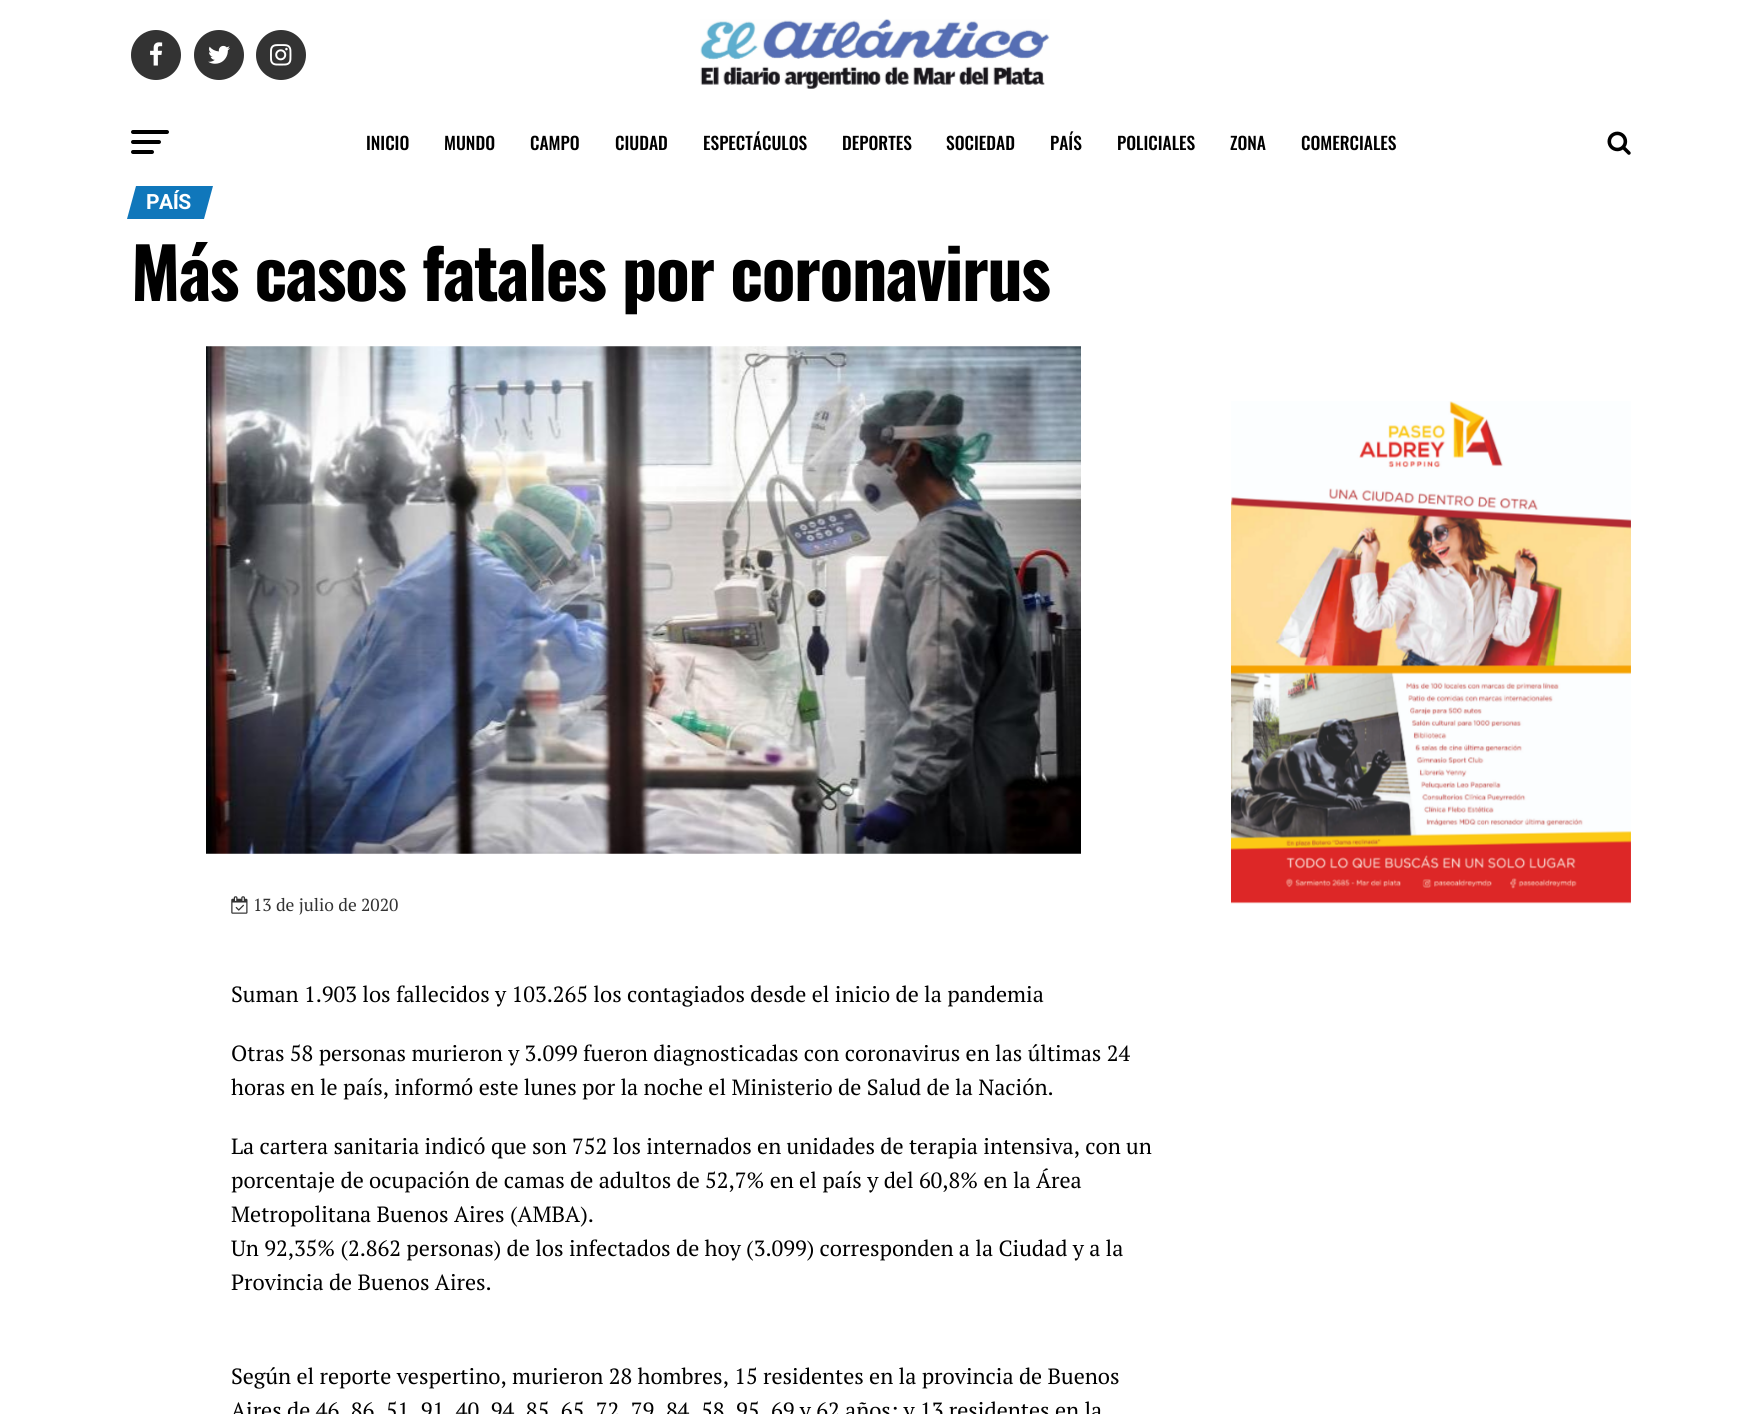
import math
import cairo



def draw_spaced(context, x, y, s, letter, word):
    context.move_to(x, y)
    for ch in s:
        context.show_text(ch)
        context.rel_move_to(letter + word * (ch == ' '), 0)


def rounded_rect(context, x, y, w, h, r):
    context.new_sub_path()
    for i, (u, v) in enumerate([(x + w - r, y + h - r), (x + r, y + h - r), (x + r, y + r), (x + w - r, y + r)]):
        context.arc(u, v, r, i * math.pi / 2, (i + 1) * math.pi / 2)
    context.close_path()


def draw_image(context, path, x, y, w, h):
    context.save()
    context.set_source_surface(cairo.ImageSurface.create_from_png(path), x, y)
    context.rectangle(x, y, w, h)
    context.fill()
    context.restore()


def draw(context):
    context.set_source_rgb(1, 1, 1)
    context.paint()
    context.set_source_rgb(51 / 255, 51 / 255, 51 / 255)
    context.arc(156, 55, 25, 0, 2 * math.pi)
    context.fill()
    draw_image(context, "images/1.png", 150, 42, 13, 24)
    context.arc(219, 55, 25, 0, 2 * math.pi)
    context.fill()
    draw_image(context, "images/2.png", 208, 45, 22, 19)
    context.arc(281, 55, 25, 0, 2 * math.pi)
    context.fill()
    draw_image(context, "images/3.png", 270, 44, 22, 22)
    draw_image(context, "images/4.png", 700, 18, 350, 71)
    context.set_source_rgb(0, 0, 0)
    rounded_rect(context, 131, 130, 38, 4, 2)
    context.fill()
    rounded_rect(context, 131, 140, 30, 4, 2)
    context.fill()
    rounded_rect(context, 131, 150, 23, 4, 2)
    context.fill()
    draw_image(context, "images/5.png", 1607, 131, 24, 24)
    context.set_source_rgb(16 / 255, 119 / 255, 187 / 255)
    context.new_path()
    context.move_to(136, 186)
    context.line_to(213, 186)
    context.line_to(204, 219)
    context.line_to(127, 219)
    context.close_path()
    context.fill()
    draw_image(context, "images/6.png", 1231, 401, 400, 503)
    draw_image(context, "images/7.png", 206, 346, 875, 508)
    draw_image(context, "images/8.png", 231, 896, 17, 18)
    context.select_font_face("Oswald Medium")
    context.set_font_size(17.5)
    context.set_source_rgb(0, 0, 0)
    context.move_to(366, 150)
    context.show_text("INICIO")
    context.move_to(444, 150)
    context.show_text("MUNDO")
    context.move_to(530, 150)
    context.show_text("CAMPO")
    context.move_to(615, 150)
    context.show_text("CIUDAD")
    context.move_to(703, 150)
    context.show_text("ESPECTÁCULOS")
    context.move_to(842, 150)
    context.show_text("DEPORTES")
    context.move_to(946, 150)
    context.show_text("SOCIEDAD")
    context.move_to(1050, 150)
    context.show_text("PAÍS")
    context.move_to(1117, 150)
    context.show_text("POLICIALES")
    context.move_to(1230, 150)
    context.show_text("ZONA")
    context.move_to(1301, 150)
    context.show_text("COMERCIALES")
    context.select_font_face("Roboto", cairo.FontSlant.NORMAL, cairo.FontWeight.BOLD)
    context.set_font_size(21)
    context.set_source_rgb(1, 1, 1)
    draw_spaced(context, 146, 209, "PAÍS", -0.5, 0)
    context.select_font_face("Oswald", cairo.FontSlant.NORMAL, cairo.FontWeight.BOLD)
    context.set_font_size(70)
    context.set_source_rgb(0, 0, 0)
    draw_spaced(context, 131, 301, "Más casos fatales por coronavirus", -1.4, 0)
    context.select_font_face("PT Serif")
    context.set_font_size(17.5)
    context.set_source_rgb(51 / 255, 51 / 255, 51 / 255)
    context.move_to(253, 911)
    context.show_text("13 de julio de 2020")
    context.set_font_size(22)
    context.set_source_rgb(0, 0, 0)
    context.move_to(231, 1002)
    context.show_text("Suman 1.903 los fallecidos y 103.265 los contagiados desde el inicio de la pandemia")
    context.move_to(231, 1061)
    context.show_text("Otras 58 personas murieron y 3.099 fueron diagnosticadas con coronavirus en las últimas 24")
    context.move_to(231, 1095)
    context.show_text("horas en le país, informó este lunes por la noche el Ministerio de Salud de la Nación.")
    context.move_to(231, 1154)
    context.show_text("La cartera sanitaria indicó que son 752 los internados en unidades de terapia intensiva, con un")
    context.move_to(231, 1188)
    context.show_text("porcentaje de ocupación de camas de adultos de 52,7% en el país y del 60,8% en la Área")
    context.move_to(231, 1222)
    context.show_text("Metropolitana Buenos Aires (AMBA).")
    context.move_to(231, 1256)
    context.show_text("Un 92,35% (2.862 personas) de los infectados de hoy (3.099) corresponden a la Ciudad y a la")
    context.move_to(231, 1290)
    context.show_text("Provincia de Buenos Aires.")
    context.move_to(231, 1384)
    context.show_text("Según el reporte vespertino, murieron 28 hombres, 15 residentes en la provincia de Buenos")
    context.move_to(231, 1418)
    context.show_text("Aires de 46, 86, 51, 91, 40, 94, 85, 65, 72, 79, 84, 58, 95, 69 y 62 años; y 13 residentes en la")


surface = cairo.ImageSurface(cairo.Format.RGB24, 1762, 1414)
context = cairo.Context(surface)
options = cairo.FontOptions()
options.set_hint_metrics(cairo.HintMetrics.OFF)
options.set_hint_style(cairo.HintStyle.NONE)
context.set_font_options(options)
context.set_miter_limit(4)
draw(context)
surface.write_to_png("out.png")
